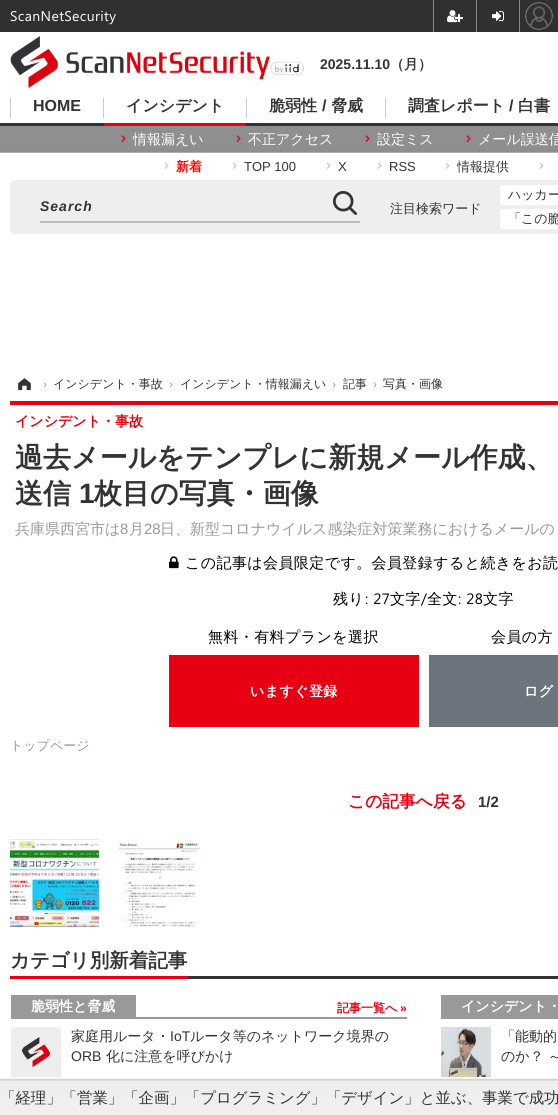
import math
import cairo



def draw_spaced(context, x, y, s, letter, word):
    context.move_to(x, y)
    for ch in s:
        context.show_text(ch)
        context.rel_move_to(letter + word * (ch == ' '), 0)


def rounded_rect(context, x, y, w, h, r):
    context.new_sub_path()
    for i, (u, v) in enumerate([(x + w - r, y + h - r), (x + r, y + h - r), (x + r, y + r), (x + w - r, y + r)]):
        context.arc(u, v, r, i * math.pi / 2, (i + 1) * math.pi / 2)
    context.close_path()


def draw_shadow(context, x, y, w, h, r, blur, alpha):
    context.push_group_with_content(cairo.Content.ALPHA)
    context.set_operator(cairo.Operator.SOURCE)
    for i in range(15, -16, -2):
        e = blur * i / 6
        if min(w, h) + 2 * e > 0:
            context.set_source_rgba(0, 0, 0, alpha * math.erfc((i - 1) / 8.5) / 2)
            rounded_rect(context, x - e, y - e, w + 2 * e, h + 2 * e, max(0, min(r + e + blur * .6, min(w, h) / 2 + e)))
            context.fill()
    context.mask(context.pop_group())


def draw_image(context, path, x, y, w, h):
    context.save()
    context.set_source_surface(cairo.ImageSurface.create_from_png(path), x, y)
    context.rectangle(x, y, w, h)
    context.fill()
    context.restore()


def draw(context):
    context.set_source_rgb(1, 1, 1)
    context.paint()
    context.set_source_rgb(48 / 255, 48 / 255, 48 / 255)
    context.rectangle(0, 0, 558, 32)
    context.fill()
    context.set_source_rgb(136 / 255, 136 / 255, 136 / 255)
    context.rectangle(433, 0, 1, 32)
    context.fill()
    draw_image(context, "images/1.png", 447, 10, 16, 13)
    context.rectangle(519, 0, 1, 32)
    context.fill()
    context.rectangle(476, 0, 1, 32)
    context.fill()
    draw_image(context, "images/2.png", 492, 11, 12, 11)
    draw_image(context, "images/3.png", 525, 2, 28, 28)
    draw_image(context, "images/4.png", 10, 36, 294, 52)
    draw_image(context, "images/5.png", 0, 123, 558, 30)
    context.set_source_rgb(204 / 255, 204 / 255, 204 / 255)
    context.rectangle(10, 98, 1, 20)
    context.fill()
    context.rectangle(246, 98, 1, 20)
    context.fill()
    context.rectangle(385, 98, 1, 20)
    context.fill()
    context.rectangle(103, 98, 1, 20)
    context.fill()
    context.set_source_rgb(230 / 255, 0, 18 / 255)
    context.rectangle(104, 123, 142, 3)
    context.fill()
    draw_image(context, "images/6.png", 121, 135, 5, 7)
    draw_image(context, "images/6.png", 236, 135, 5, 7)
    draw_image(context, "images/6.png", 365, 135, 5, 7)
    draw_image(context, "images/6.png", 466, 135, 5, 7)
    draw_image(context, "images/7.png", 164, 162, 5, 7)
    draw_image(context, "images/7.png", 232, 162, 5, 7)
    draw_image(context, "images/7.png", 326, 162, 5, 7)
    draw_image(context, "images/7.png", 377, 162, 5, 7)
    draw_image(context, "images/7.png", 445, 162, 5, 7)
    draw_image(context, "images/7.png", 539, 162, 5, 7)
    context.set_source_rgb(238 / 255, 238 / 255, 238 / 255)
    rounded_rect(context, 10, 180, 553, 54, 5)
    context.fill()
    context.set_source_rgb(187 / 255, 187 / 255, 187 / 255)
    context.rectangle(40, 221, 320, 2)
    context.fill()
    draw_image(context, "images/8.png", 333, 191, 24, 24)
    context.set_source_rgb(1, 1, 1)
    rounded_rect(context, 500, 185, 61, 20, 3)
    context.fill()
    rounded_rect(context, 500, 209, 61, 20, 3)
    context.fill()
    draw_image(context, "images/9.png", 18, 378, 13, 13)
    context.set_source_rgb(230 / 255, 0, 18 / 255)
    context.rectangle(10, 401, 548, 4)
    context.fill()
    draw_image(context, "images/10.png", 169, 556, 10, 13)
    context.rectangle(169, 655, 250, 72)
    context.fill()
    context.set_source_rgb(108 / 255, 117 / 255, 125 / 255)
    context.rectangle(429, 655, 129, 72)
    context.fill()
    draw_image(context, "images/11.png", 10, 839, 89, 88)
    draw_image(context, "images/12.png", 116, 839, 84, 88)
    context.set_source_rgb(230 / 255, 0, 18 / 255)
    context.rectangle(10, 976, 178, 3)
    context.fill()
    context.set_source_rgb(51 / 255, 51 / 255, 51 / 255)
    context.rectangle(188, 976, 370, 3)
    context.fill()
    context.set_source_rgb(153 / 255, 153 / 255, 153 / 255)
    context.rectangle(11, 1017, 396, 2)
    context.fill()
    context.rectangle(11, 995, 125, 22)
    context.fill()
    context.set_source_rgb(238 / 255, 238 / 255, 238 / 255)
    context.rectangle(11, 1027, 50, 50)
    context.fill()
    draw_image(context, "images/13.png", 22, 1037, 28, 30)
    context.set_source_rgb(153 / 255, 153 / 255, 153 / 255)
    context.rectangle(441, 995, 117, 24)
    context.fill()
    draw_image(context, "images/14.png", 441, 1027, 50, 50)
    context.set_source_rgb(0, 0, 0)
    draw_shadow(context, -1, 1079, 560, 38, 0, 0.5, 0.2)
    gradient = cairo.LinearGradient(279, 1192, 279, 1081)
    gradient.add_color_stop_rgba(0, 1, 1, 1, 1)
    gradient.add_color_stop_rgba(0.68, 1, 1, 1, 1)
    gradient.add_color_stop_rgba(0.68, 239 / 255, 239 / 255, 239 / 255, 1)
    gradient.add_color_stop_rgba(1, 238 / 255, 238 / 255, 238 / 255, 1)
    context.set_source(gradient)
    context.rectangle(0, 1081, 558, 34)
    context.fill()
    context.set_source_rgb(221 / 255, 221 / 255, 221 / 255)
    context.rectangle(0, 1080, 558, 1)
    context.fill()
    context.select_font_face("Segoe UI")
    context.set_font_size(14)
    context.set_source_rgb(1, 1, 1)
    draw_spaced(context, 10, 21, "ScanNetSecurity", 0.4, 0)
    context.select_font_face("Liberation Sans", cairo.FontSlant.NORMAL, cairo.FontWeight.BOLD)
    context.set_source_rgb(51 / 255, 51 / 255, 51 / 255)
    context.move_to(320, 69)
    context.show_text("2025.11.10")
    context.select_font_face("WenQuanYi Zen Hei", cairo.FontSlant.NORMAL, cairo.FontWeight.BOLD)
    context.move_to(390, 69)
    context.show_text("（月）")
    context.select_font_face("Liberation Sans", cairo.FontSlant.NORMAL, cairo.FontWeight.BOLD)
    context.set_font_size(16)
    context.move_to(33, 111)
    context.show_text("HOME")
    context.select_font_face("WenQuanYi Zen Hei", cairo.FontSlant.NORMAL, cairo.FontWeight.BOLD)
    context.move_to(269, 111)
    context.show_text("脆弱性")
    context.select_font_face("Liberation Sans", cairo.FontSlant.NORMAL, cairo.FontWeight.BOLD)
    context.move_to(322, 111)
    context.show_text("/")
    context.select_font_face("WenQuanYi Zen Hei", cairo.FontSlant.NORMAL, cairo.FontWeight.BOLD)
    context.move_to(331, 111)
    context.show_text("脅威")
    context.move_to(408, 111)
    context.show_text("調査レポート")
    context.select_font_face("Liberation Sans", cairo.FontSlant.NORMAL, cairo.FontWeight.BOLD)
    context.move_to(509, 111)
    context.show_text("/")
    context.select_font_face("WenQuanYi Zen Hei", cairo.FontSlant.NORMAL, cairo.FontWeight.BOLD)
    context.move_to(518, 111)
    context.show_text("白書")
    context.move_to(126, 111)
    context.show_text("インシデント")
    context.select_font_face("WenQuanYi Zen Hei Medium")
    context.set_font_size(14)
    context.set_source_rgb(1, 1, 1)
    context.move_to(133, 144)
    context.show_text("情報漏えい")
    context.move_to(248, 144)
    context.show_text("不正アクセス")
    context.move_to(377, 144)
    context.show_text("設定ミス")
    context.move_to(478, 144)
    context.show_text("メール誤送信")
    context.select_font_face("WenQuanYi Zen Hei", cairo.FontSlant.NORMAL, cairo.FontWeight.BOLD)
    context.set_font_size(13)
    context.set_source_rgb(1, 0, 0)
    context.move_to(176, 171)
    context.show_text("新着")
    context.select_font_face("Liberation Sans")
    context.set_source_rgb(51 / 255, 51 / 255, 51 / 255)
    context.move_to(244, 171)
    context.show_text("TOP 100")
    context.move_to(338, 171)
    context.show_text("X")
    context.move_to(389, 171)
    context.show_text("RSS")
    context.select_font_face("WenQuanYi Zen Hei Medium")
    context.move_to(457, 171)
    context.show_text("情報提供")
    context.select_font_face("Liberation Sans", cairo.FontSlant.ITALIC, cairo.FontWeight.BOLD)
    context.set_font_size(14)
    draw_spaced(context, 40, 211, "Search", 1, 0)
    context.select_font_face("WenQuanYi Zen Hei Medium")
    context.set_font_size(13)
    context.move_to(390, 213)
    context.show_text("注目検索ワード")
    context.move_to(508, 199)
    context.show_text("ハッカー")
    context.move_to(508, 223)
    context.show_text("「この脆")
    context.select_font_face("Liberation Sans")
    context.set_font_size(12)
    context.set_source_rgb(153 / 255, 153 / 255, 153 / 255)
    context.move_to(43, 388)
    context.show_text("›")
    context.select_font_face("WenQuanYi Zen Hei Medium")
    context.set_source_rgb(51 / 255, 51 / 255, 51 / 255)
    context.move_to(53, 388)
    context.show_text("インシデント・事故")
    context.select_font_face("Liberation Sans")
    context.set_source_rgb(153 / 255, 153 / 255, 153 / 255)
    context.move_to(169, 388)
    context.show_text("›")
    context.select_font_face("WenQuanYi Zen Hei Medium")
    context.set_source_rgb(51 / 255, 51 / 255, 51 / 255)
    context.move_to(180, 388)
    context.show_text("インシデント・情報漏えい")
    context.select_font_face("Liberation Sans")
    context.set_source_rgb(153 / 255, 153 / 255, 153 / 255)
    context.move_to(332, 388)
    context.show_text("›")
    context.select_font_face("WenQuanYi Zen Hei Medium")
    context.set_source_rgb(51 / 255, 51 / 255, 51 / 255)
    context.move_to(343, 388)
    context.show_text("記事")
    context.select_font_face("Liberation Sans")
    context.set_source_rgb(153 / 255, 153 / 255, 153 / 255)
    context.move_to(373, 388)
    context.show_text("›")
    context.select_font_face("WenQuanYi Zen Hei Medium")
    context.set_source_rgb(51 / 255, 51 / 255, 51 / 255)
    context.move_to(383, 388)
    context.show_text("写真・画像")
    context.select_font_face("WenQuanYi Zen Hei", cairo.FontSlant.NORMAL, cairo.FontWeight.BOLD)
    context.set_font_size(14)
    context.set_source_rgb(230 / 255, 0, 18 / 255)
    context.move_to(15, 426)
    context.show_text("インシデント・事故")
    context.set_font_size(28)
    context.set_source_rgb(51 / 255, 51 / 255, 51 / 255)
    context.move_to(15, 467)
    context.show_text("過去メールをテンプレに新規メール作成、")
    context.move_to(15, 503)
    context.show_text("送信")
    context.select_font_face("Liberation Sans", cairo.FontSlant.NORMAL, cairo.FontWeight.BOLD)
    context.move_to(79, 503)
    context.show_text("1")
    context.select_font_face("WenQuanYi Zen Hei", cairo.FontSlant.NORMAL, cairo.FontWeight.BOLD)
    context.move_to(94, 503)
    context.show_text("枚目の写真・画像")
    context.select_font_face("WenQuanYi Zen Hei Medium")
    context.set_font_size(15)
    context.set_source_rgb(153 / 255, 153 / 255, 153 / 255)
    context.move_to(15, 534)
    context.show_text("兵庫県西宮市は")
    context.select_font_face("Liberation Sans")
    context.move_to(120, 534)
    context.show_text("8")
    context.select_font_face("WenQuanYi Zen Hei Medium")
    context.move_to(129, 534)
    context.show_text("月")
    context.select_font_face("Liberation Sans")
    context.move_to(144, 534)
    context.show_text("28")
    context.select_font_face("WenQuanYi Zen Hei Medium")
    context.move_to(160, 534)
    context.show_text("日、新型コロナウイルス感染症対策業務におけるメールの")
    context.set_source_rgb(0, 0, 0)
    draw_spaced(context, 185, 568, "この記事は会員限定です。会員登録すると続きをお読", 0.4, 0)
    draw_spaced(context, 333, 604, "残り", 0.4, 0)
    context.select_font_face("Segoe UI")
    draw_spaced(context, 365, 604, ": 27", 0.4, 0)
    context.select_font_face("WenQuanYi Zen Hei Medium")
    draw_spaced(context, 390, 604, "文字", 0.4, 0)
    context.select_font_face("Segoe UI")
    draw_spaced(context, 421, 604, "/", 0.4, 0)
    context.select_font_face("WenQuanYi Zen Hei Medium")
    draw_spaced(context, 427, 604, "全文", 0.4, 0)
    context.select_font_face("Segoe UI")
    draw_spaced(context, 458, 604, ": 28", 0.4, 0)
    context.select_font_face("WenQuanYi Zen Hei Medium")
    draw_spaced(context, 483, 604, "文字", 0.4, 0)
    draw_spaced(context, 208, 642, "無料・有料プランを選択", 0.4, 0)
    context.select_font_face("WenQuanYi Zen Hei", cairo.FontSlant.NORMAL, cairo.FontWeight.BOLD)
    context.set_font_size(14)
    context.set_source_rgb(1, 1, 1)
    draw_spaced(context, 250, 696, "いますぐ登録", 0.4, 0)
    context.select_font_face("WenQuanYi Zen Hei Medium")
    context.set_font_size(15)
    context.set_source_rgb(0, 0, 0)
    draw_spaced(context, 491, 642, "会員の方", 0.4, 0)
    context.select_font_face("WenQuanYi Zen Hei", cairo.FontSlant.NORMAL, cairo.FontWeight.BOLD)
    context.set_font_size(14)
    context.set_source_rgb(1, 1, 1)
    draw_spaced(context, 524, 696, "ログ", 0.4, 0)
    context.select_font_face("WenQuanYi Zen Hei Medium")
    context.set_font_size(13)
    context.set_source_rgb(153 / 255, 153 / 255, 153 / 255)
    context.move_to(10, 750)
    context.show_text("トップページ")
    context.select_font_face("WenQuanYi Zen Hei", cairo.FontSlant.NORMAL, cairo.FontWeight.BOLD)
    context.set_font_size(16.75)
    context.set_source_rgb(230 / 255, 0, 18 / 255)
    context.move_to(348, 807)
    context.show_text("この記事へ戻る")
    context.select_font_face("Liberation Sans", cairo.FontSlant.NORMAL, cairo.FontWeight.BOLD)
    context.set_font_size(15)
    context.set_source_rgb(51 / 255, 51 / 255, 51 / 255)
    context.move_to(478, 807)
    context.show_text("1/2")
    context.select_font_face("WenQuanYi Zen Hei", cairo.FontSlant.NORMAL, cairo.FontWeight.BOLD)
    context.set_font_size(19.5)
    context.move_to(10, 967)
    context.show_text("カテゴリ別新着記事")
    context.set_font_size(14)
    context.set_source_rgb(1, 1, 1)
    context.move_to(31, 1011)
    context.show_text("脆弱性と脅威")
    context.set_font_size(12)
    context.set_source_rgb(230 / 255, 0, 18 / 255)
    context.move_to(337, 1012)
    context.show_text("記事一覧へ")
    context.select_font_face("Liberation Sans", cairo.FontSlant.NORMAL, cairo.FontWeight.BOLD)
    context.move_to(400, 1012)
    context.show_text("»")
    context.select_font_face("WenQuanYi Zen Hei Medium")
    context.set_font_size(14)
    context.set_source_rgb(51 / 255, 51 / 255, 51 / 255)
    context.move_to(71, 1041)
    context.show_text("家庭用ルータ・")
    context.select_font_face("Liberation Sans")
    context.move_to(170, 1041)
    context.show_text("IoT")
    context.select_font_face("WenQuanYi Zen Hei Medium")
    context.move_to(190, 1041)
    context.show_text("ルータ等のネットワーク境界の")
    context.select_font_face("Liberation Sans")
    context.move_to(71, 1061)
    context.show_text("ORB")
    context.select_font_face("WenQuanYi Zen Hei Medium")
    context.move_to(106, 1061)
    context.show_text("化に注意を呼びかけ")
    context.select_font_face("WenQuanYi Zen Hei", cairo.FontSlant.NORMAL, cairo.FontWeight.BOLD)
    context.set_source_rgb(1, 1, 1)
    context.move_to(461, 1011)
    context.show_text("インシデント・")
    context.select_font_face("WenQuanYi Zen Hei Medium")
    context.set_source_rgb(51 / 255, 51 / 255, 51 / 255)
    context.move_to(501, 1041)
    context.show_text("「能動的")
    context.move_to(501, 1061)
    context.show_text("のか？")
    context.move_to(548, 1061)
    context.show_text("～")
    context.set_font_size(15.4)
    context.move_to(0, 1103)
    context.show_text("「経理」「営業」「企画」「プログラミング」「デザイン」と並ぶ、事業で成功")


surface = cairo.ImageSurface(cairo.Format.RGB24, 558, 1115)
context = cairo.Context(surface)
options = cairo.FontOptions()
options.set_hint_metrics(cairo.HintMetrics.OFF)
options.set_hint_style(cairo.HintStyle.NONE)
context.set_font_options(options)
context.set_miter_limit(4)
draw(context)
surface.write_to_png("out.png")
